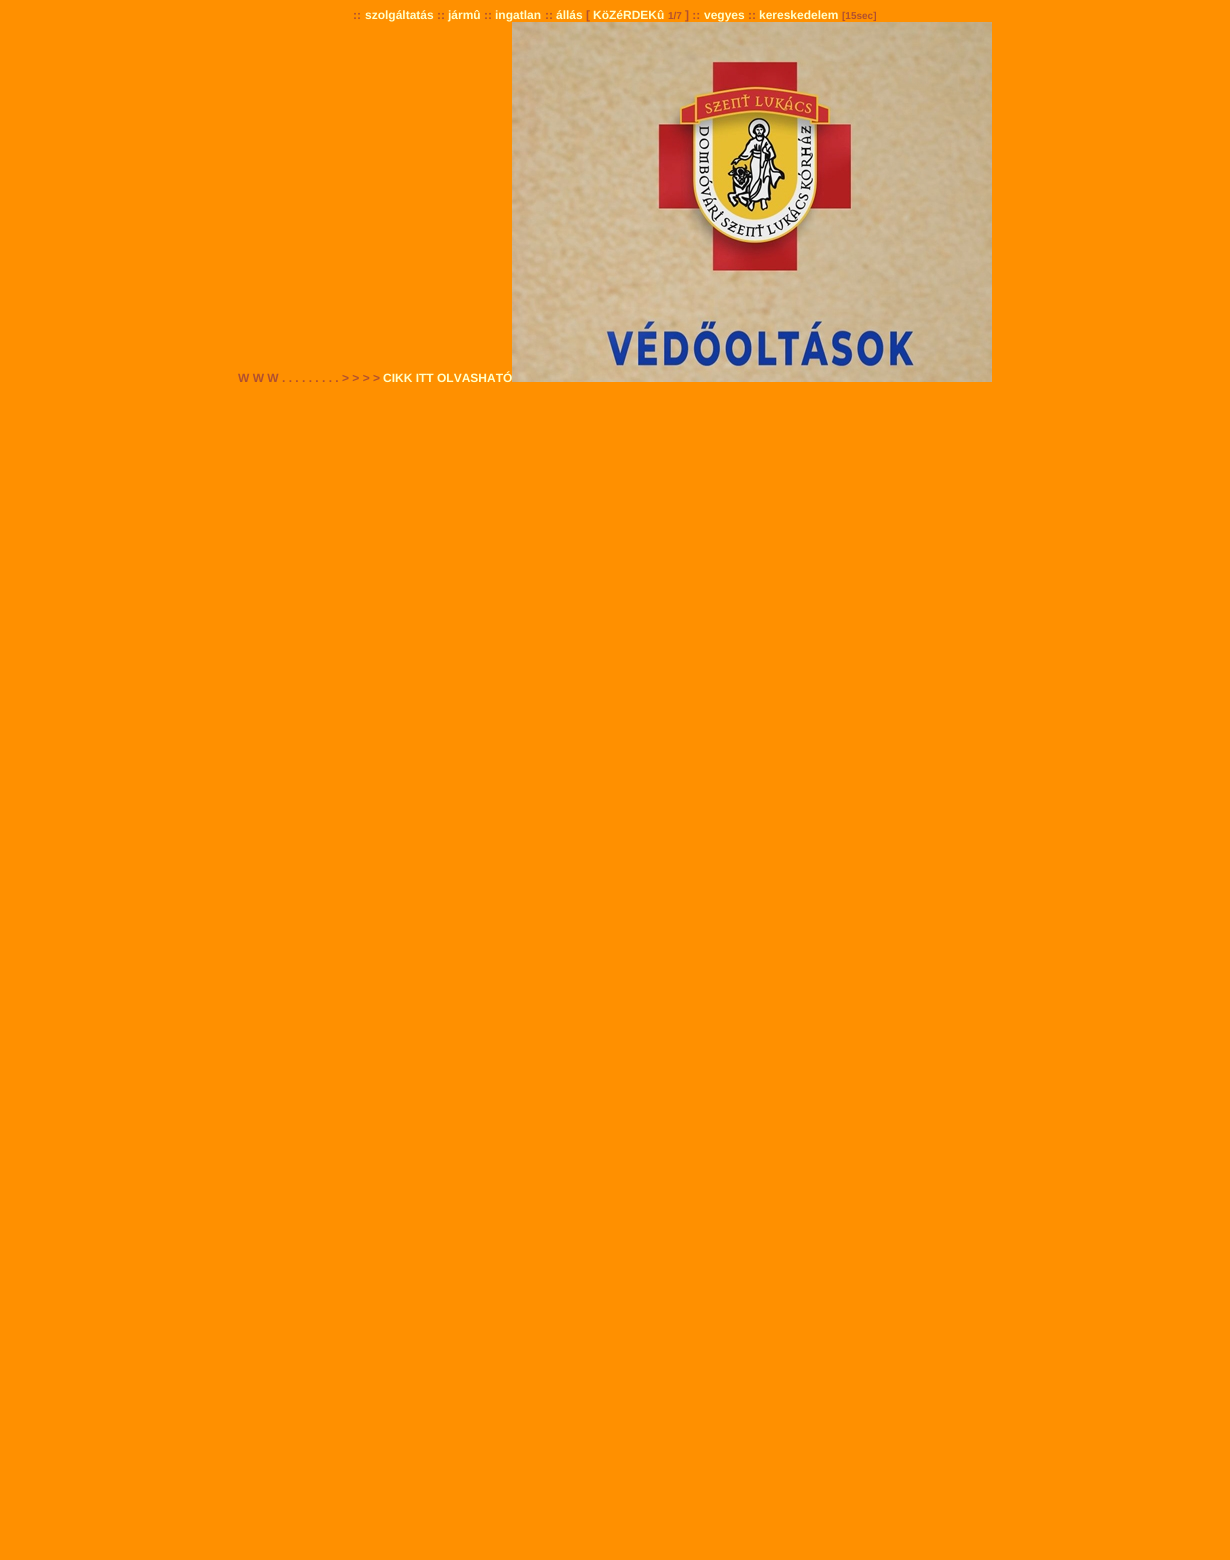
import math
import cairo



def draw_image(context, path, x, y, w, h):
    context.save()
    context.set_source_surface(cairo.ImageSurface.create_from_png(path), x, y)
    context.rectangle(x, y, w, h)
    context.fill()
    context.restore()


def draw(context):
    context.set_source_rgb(1, 144 / 255, 0)
    context.paint()
    draw_image(context, "images/1.png", 512, 22, 480, 360)
    context.select_font_face("Liberation Sans", cairo.FontSlant.NORMAL, cairo.FontWeight.BOLD)
    context.set_font_size(12)
    context.set_source_rgb(176 / 255, 80 / 255, 48 / 255)
    context.move_to(353, 19)
    context.show_text("::")
    context.set_source_rgb(1, 1, 204 / 255)
    context.move_to(365, 19)
    context.show_text("szolgáltatás")
    context.set_source_rgb(176 / 255, 80 / 255, 48 / 255)
    context.move_to(437, 19)
    context.show_text("::")
    context.set_source_rgb(1, 1, 204 / 255)
    context.move_to(448, 19)
    context.show_text("jármû")
    context.set_source_rgb(176 / 255, 80 / 255, 48 / 255)
    context.move_to(484, 19)
    context.show_text("::")
    context.set_source_rgb(1, 1, 204 / 255)
    context.move_to(495, 19)
    context.show_text("ingatlan")
    context.set_source_rgb(176 / 255, 80 / 255, 48 / 255)
    context.move_to(545, 19)
    context.show_text("::")
    context.set_source_rgb(1, 1, 204 / 255)
    context.move_to(556, 19)
    context.show_text("állás")
    context.set_source_rgb(176 / 255, 80 / 255, 48 / 255)
    context.move_to(586, 19)
    context.show_text("[")
    context.set_source_rgb(1, 1, 204 / 255)
    context.move_to(593, 19)
    context.show_text("KöZéRDEKû")
    context.set_font_size(10)
    context.set_source_rgb(176 / 255, 80 / 255, 48 / 255)
    context.move_to(668, 19)
    context.show_text("1/7")
    context.set_font_size(12)
    context.move_to(685, 19)
    context.show_text("] ::")
    context.set_source_rgb(1, 1, 204 / 255)
    context.move_to(704, 19)
    context.show_text("vegyes")
    context.set_source_rgb(176 / 255, 80 / 255, 48 / 255)
    context.move_to(748, 19)
    context.show_text("::")
    context.set_source_rgb(1, 1, 204 / 255)
    context.move_to(759, 19)
    context.show_text("kereskedelem")
    context.set_font_size(10)
    context.set_source_rgb(176 / 255, 80 / 255, 48 / 255)
    context.move_to(842, 19)
    context.show_text("[15sec]")
    context.set_font_size(12)
    context.move_to(238, 382)
    context.show_text("W W W . . . . . . . . . > > > >")
    context.set_source_rgb(1, 1, 204 / 255)
    context.move_to(383, 382)
    context.show_text("CIKK ITT OLVASHATÓ")


surface = cairo.ImageSurface(cairo.Format.RGB24, 1230, 1560)
context = cairo.Context(surface)
options = cairo.FontOptions()
options.set_hint_metrics(cairo.HintMetrics.OFF)
options.set_hint_style(cairo.HintStyle.NONE)
context.set_font_options(options)
context.set_miter_limit(4)
draw(context)
surface.write_to_png("out.png")
